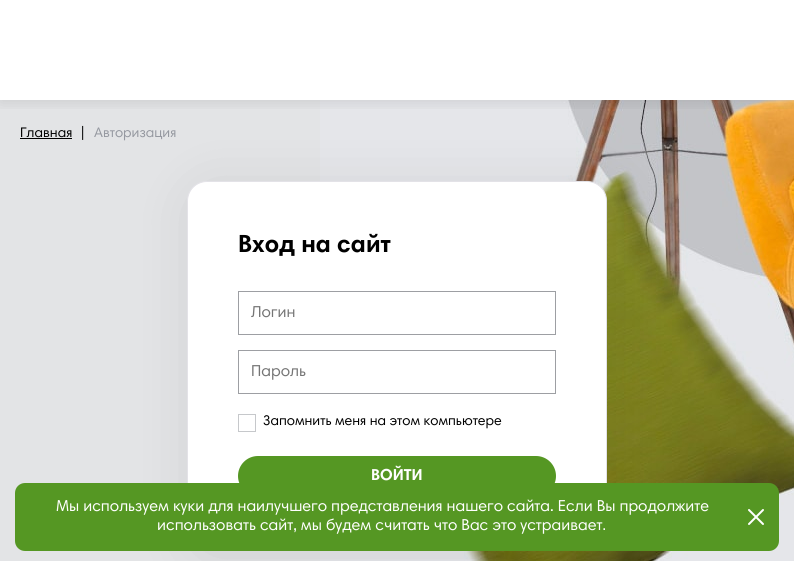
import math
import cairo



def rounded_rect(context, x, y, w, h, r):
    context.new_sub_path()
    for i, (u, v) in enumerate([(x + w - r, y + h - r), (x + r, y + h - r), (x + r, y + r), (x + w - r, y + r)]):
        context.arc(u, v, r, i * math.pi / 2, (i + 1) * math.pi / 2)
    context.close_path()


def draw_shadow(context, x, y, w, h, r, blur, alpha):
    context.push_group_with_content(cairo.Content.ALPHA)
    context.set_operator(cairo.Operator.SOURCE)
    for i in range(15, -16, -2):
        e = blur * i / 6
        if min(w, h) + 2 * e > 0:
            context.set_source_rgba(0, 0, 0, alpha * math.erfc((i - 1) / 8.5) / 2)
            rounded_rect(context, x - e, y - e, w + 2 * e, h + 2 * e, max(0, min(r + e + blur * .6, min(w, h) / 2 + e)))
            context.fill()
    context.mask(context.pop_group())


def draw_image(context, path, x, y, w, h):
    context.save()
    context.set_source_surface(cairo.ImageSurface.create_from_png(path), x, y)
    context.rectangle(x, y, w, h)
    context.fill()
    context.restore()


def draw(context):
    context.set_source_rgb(1, 1, 1)
    context.paint()
    context.set_source_rgb(227 / 255, 228 / 255, 230 / 255)
    context.rectangle(0, 100, 320, 461)
    context.fill()
    draw_image(context, "images/1.png", 320, 100, 474, 461)
    context.save()
    context.rectangle(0, 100, 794, 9)
    context.clip()
    context.set_source_rgb(0, 0, 0)
    draw_shadow(context, 0, 3, 794, 100, 0, 7.5, 0.1)
    context.restore()
    context.set_source_rgb(0, 0, 0)
    context.rectangle(20, 138, 52, 1)
    context.fill()
    context.set_source_rgb(0, 0, 0)
    draw_shadow(context, 192, 189, 420, 366, 20, 27, 0.1)
    context.set_source_rgb(1, 1, 1)
    rounded_rect(context, 187.5, 181.5, 419, 365, 19.5)
    context.fill_preserve()
    context.set_source_rgb(227 / 255, 226 / 255, 231 / 255)
    context.set_line_width(1)
    context.stroke()
    context.rectangle(238.5, 291.5, 317, 43)
    context.set_source_rgb(157 / 255, 159 / 255, 163 / 255)
    context.stroke()
    context.rectangle(238.5, 350.5, 317, 43)
    context.stroke()
    context.rectangle(238.5, 414.5, 17, 17)
    context.set_source_rgb(198 / 255, 200 / 255, 203 / 255)
    context.stroke()
    context.set_source_rgb(85 / 255, 151 / 255, 35 / 255)
    rounded_rect(context, 238, 456, 318, 40, 20)
    context.fill()
    rounded_rect(context, 15, 483, 764, 68, 10)
    context.fill()
    draw_image(context, "images/2.png", 748, 509, 16, 16)
    context.select_font_face("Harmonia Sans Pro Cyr")
    context.set_font_size(14)
    context.set_source_rgb(0, 0, 0)
    context.move_to(20, 137)
    context.show_text("Главная")
    context.move_to(80, 137)
    context.show_text("|")
    context.set_source_rgb(149 / 255, 152 / 255, 160 / 255)
    context.move_to(94, 137)
    context.show_text("Авторизация")
    context.select_font_face("Harmonia Sans Pro Cyr", cairo.FontSlant.NORMAL, cairo.FontWeight.BOLD)
    context.set_font_size(25)
    context.set_source_rgb(0, 0, 0)
    context.move_to(238, 252)
    context.show_text("Вход на сайт")
    context.select_font_face("Harmonia Sans Pro Cyr")
    context.set_font_size(16)
    context.set_source_rgb(117 / 255, 117 / 255, 117 / 255)
    context.move_to(251, 317)
    context.show_text("Логин")
    context.move_to(251, 376)
    context.show_text("Пароль")
    context.set_font_size(14)
    context.set_source_rgb(0, 0, 0)
    context.move_to(263, 425)
    context.show_text("Запомнить меня на этом компьютере")
    context.select_font_face("Harmonia Sans Pro Cyr", cairo.FontSlant.NORMAL, cairo.FontWeight.BOLD)
    context.set_font_size(16)
    context.set_source_rgb(1, 1, 1)
    context.move_to(371, 480)
    context.show_text("ВОЙТИ")
    context.select_font_face("Harmonia Sans Pro Cyr")
    context.move_to(56, 511)
    context.show_text("Мы используем куки для наилучшего представления нашего сайта. Если Вы продолжите")
    context.move_to(157, 530)
    context.show_text("использовать сайт, мы будем считать что Вас это устраивает.")


surface = cairo.ImageSurface(cairo.Format.RGB24, 794, 561)
context = cairo.Context(surface)
options = cairo.FontOptions()
options.set_hint_metrics(cairo.HintMetrics.OFF)
options.set_hint_style(cairo.HintStyle.NONE)
context.set_font_options(options)
context.set_miter_limit(4)
draw(context)
surface.write_to_png("out.png")
